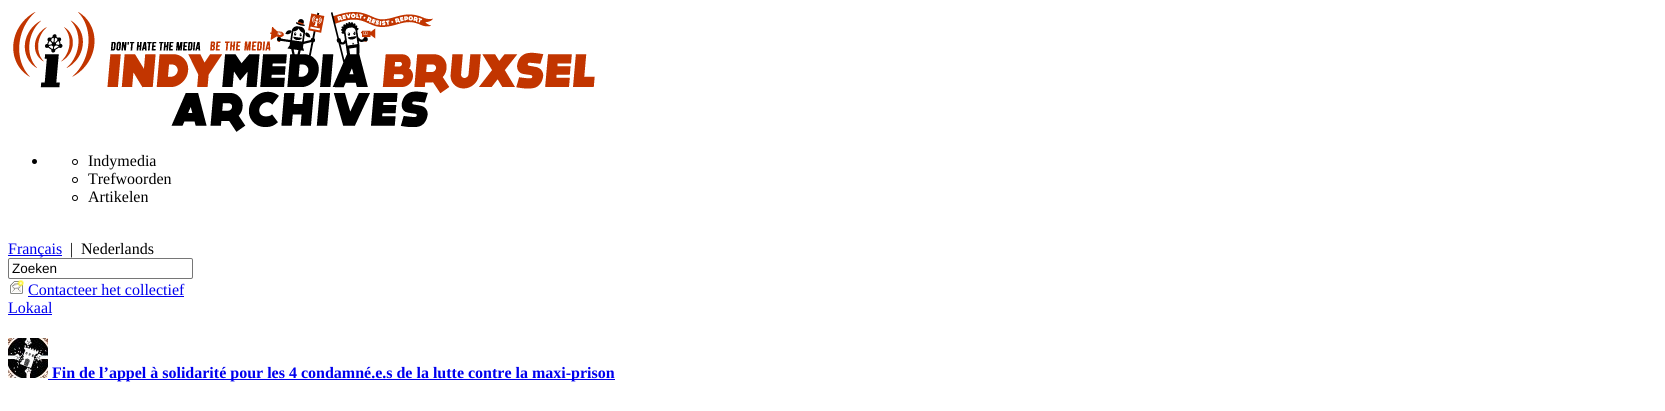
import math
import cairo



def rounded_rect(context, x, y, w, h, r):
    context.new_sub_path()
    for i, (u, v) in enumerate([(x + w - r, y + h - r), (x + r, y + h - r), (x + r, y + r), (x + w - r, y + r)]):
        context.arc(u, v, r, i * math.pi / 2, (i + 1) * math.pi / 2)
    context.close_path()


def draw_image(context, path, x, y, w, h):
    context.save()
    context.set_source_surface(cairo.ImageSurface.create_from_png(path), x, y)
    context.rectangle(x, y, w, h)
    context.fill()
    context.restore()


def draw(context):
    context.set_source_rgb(1, 1, 1)
    context.paint()
    draw_image(context, "images/1.png", 13, 12, 582, 120)
    context.set_source_rgb(0, 0, 0)
    context.arc(34.5, 161.5, 2.5, 0, 2 * math.pi)
    context.fill()
    context.arc(75, 162, 2.5, 0, 2 * math.pi)
    context.set_line_width(1)
    context.stroke()
    context.arc(75, 180, 2.5, 0, 2 * math.pi)
    context.stroke()
    context.arc(75, 198, 2.5, 0, 2 * math.pi)
    context.stroke()
    context.set_source_rgb(0, 0, 238 / 255)
    context.rectangle(8, 255, 54, 1)
    context.fill()
    rounded_rect(context, 8.5, 258.5, 184, 20, 1.5)
    context.set_source_rgb(118 / 255, 118 / 255, 118 / 255)
    context.stroke()
    draw_image(context, "images/2.png", 10, 280, 14, 14)
    context.set_source_rgb(0, 0, 238 / 255)
    context.rectangle(28, 296, 156, 1)
    context.fill()
    context.rectangle(8, 314, 44, 1)
    context.fill()
    draw_image(context, "images/3.png", 8, 338, 40, 40)
    context.rectangle(48, 379, 567, 1)
    context.fill()
    context.select_font_face("Liberation Serif")
    context.set_font_size(16)
    context.set_source_rgb(0, 0, 0)
    context.move_to(88, 166)
    context.show_text("Indymedia")
    context.move_to(88, 184)
    context.show_text("Trefwoorden")
    context.move_to(88, 202)
    context.show_text("Artikelen")
    context.set_source_rgb(0, 0, 238 / 255)
    context.move_to(8, 254)
    context.show_text("Français")
    context.set_source_rgb(0, 0, 0)
    context.move_to(70, 254)
    context.show_text("|")
    context.move_to(81, 254)
    context.show_text("Nederlands")
    context.select_font_face("Liberation Sans")
    context.set_font_size(13.5)
    context.move_to(12, 273)
    context.show_text("Zoeken")
    context.select_font_face("Liberation Serif")
    context.set_font_size(16)
    context.set_source_rgb(0, 0, 238 / 255)
    context.move_to(28, 295)
    context.show_text("Contacteer het collectief")
    context.move_to(8, 313)
    context.show_text("Lokaal")
    context.select_font_face("Liberation Serif", cairo.FontSlant.NORMAL, cairo.FontWeight.BOLD)
    context.move_to(52, 378)
    context.show_text("Fin de l’appel à solidarité pour les 4 condamné.e.s de la lutte contre la maxi-prison")


surface = cairo.ImageSurface(cairo.Format.RGB24, 1665, 411)
context = cairo.Context(surface)
options = cairo.FontOptions()
options.set_hint_metrics(cairo.HintMetrics.OFF)
options.set_hint_style(cairo.HintStyle.NONE)
context.set_font_options(options)
context.set_miter_limit(4)
draw(context)
surface.write_to_png("out.png")
